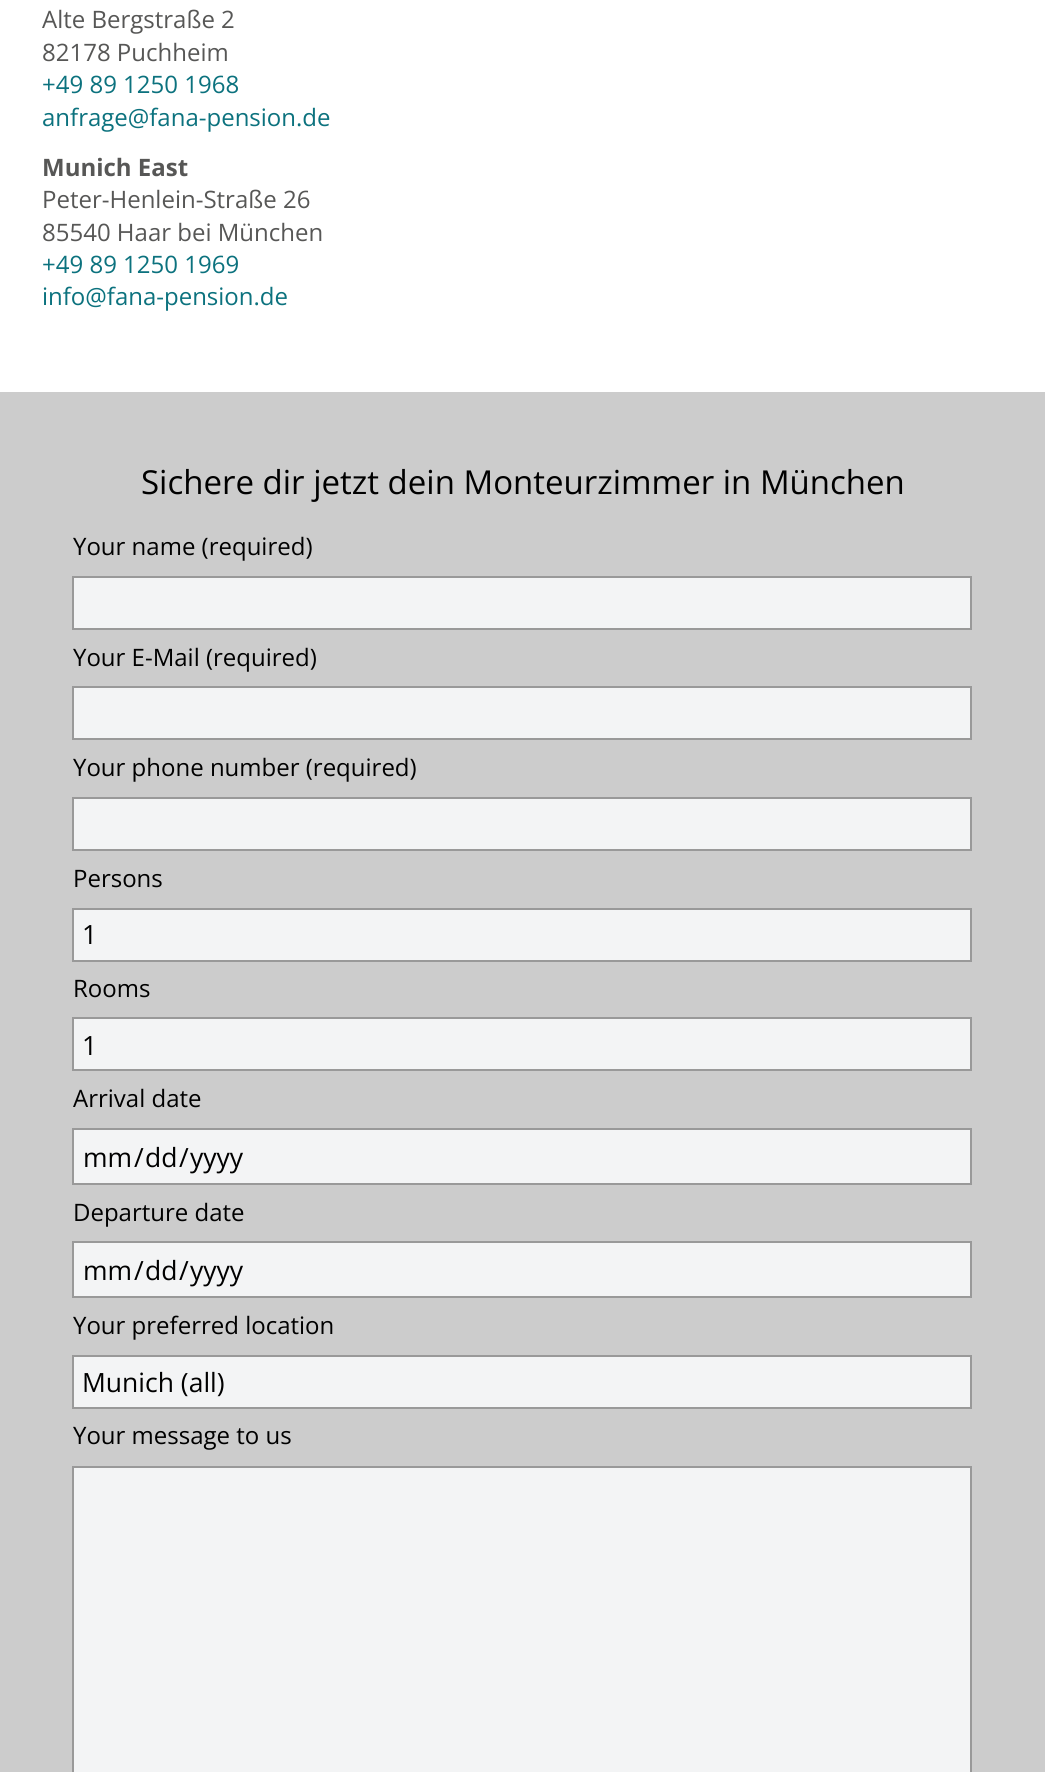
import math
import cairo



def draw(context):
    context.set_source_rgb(1, 1, 1)
    context.paint()
    context.set_source_rgb(204 / 255, 204 / 255, 204 / 255)
    context.rectangle(0, 392, 1045, 1380)
    context.fill()
    context.set_source_rgb(243 / 255, 244 / 255, 245 / 255)
    context.rectangle(73, 577, 898, 52)
    context.fill_preserve()
    context.set_source_rgb(153 / 255, 153 / 255, 153 / 255)
    context.stroke()
    context.set_source_rgb(243 / 255, 244 / 255, 245 / 255)
    context.rectangle(73, 687, 898, 52)
    context.fill_preserve()
    context.set_source_rgb(153 / 255, 153 / 255, 153 / 255)
    context.stroke()
    context.set_source_rgb(243 / 255, 244 / 255, 245 / 255)
    context.rectangle(73, 798, 898, 52)
    context.fill_preserve()
    context.set_source_rgb(153 / 255, 153 / 255, 153 / 255)
    context.stroke()
    context.set_source_rgb(243 / 255, 244 / 255, 245 / 255)
    context.rectangle(73, 909, 898, 52)
    context.fill_preserve()
    context.set_source_rgb(153 / 255, 153 / 255, 153 / 255)
    context.stroke()
    context.set_source_rgb(243 / 255, 244 / 255, 245 / 255)
    context.rectangle(73, 1018, 898, 52)
    context.fill_preserve()
    context.set_source_rgb(153 / 255, 153 / 255, 153 / 255)
    context.stroke()
    context.set_source_rgb(243 / 255, 244 / 255, 245 / 255)
    context.rectangle(73, 1129, 898, 55)
    context.fill_preserve()
    context.set_source_rgb(153 / 255, 153 / 255, 153 / 255)
    context.stroke()
    context.set_source_rgb(243 / 255, 244 / 255, 245 / 255)
    context.rectangle(73, 1242, 898, 55)
    context.fill_preserve()
    context.set_source_rgb(153 / 255, 153 / 255, 153 / 255)
    context.stroke()
    context.set_source_rgb(243 / 255, 244 / 255, 245 / 255)
    context.rectangle(73, 1356, 898, 52)
    context.fill_preserve()
    context.set_source_rgb(153 / 255, 153 / 255, 153 / 255)
    context.stroke()
    context.set_source_rgb(243 / 255, 244 / 255, 245 / 255)
    context.rectangle(73, 1467, 898, 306)
    context.fill_preserve()
    context.set_source_rgb(153 / 255, 153 / 255, 153 / 255)
    context.stroke()
    context.select_font_face("Open Sans")
    context.set_font_size(24)
    context.set_source_rgb(87 / 255, 87 / 255, 86 / 255)
    context.move_to(42, 28)
    context.show_text("Alte Bergstraße 2")
    context.move_to(42, 61)
    context.show_text("82178 Puchheim")
    context.set_source_rgb(12 / 255, 114 / 255, 126 / 255)
    context.move_to(42, 93)
    context.show_text("+49 89 1250 1968")
    context.move_to(42, 126)
    context.show_text("anfrage@fana-pension.de")
    context.select_font_face("Open Sans", cairo.FontSlant.NORMAL, cairo.FontWeight.BOLD)
    context.set_source_rgb(87 / 255, 87 / 255, 86 / 255)
    context.move_to(42, 176)
    context.show_text("Munich East")
    context.select_font_face("Open Sans")
    context.move_to(42, 208)
    context.show_text("Peter-Henlein-Straße 26")
    context.move_to(42, 241)
    context.show_text("85540 Haar bei München")
    context.set_source_rgb(12 / 255, 114 / 255, 126 / 255)
    context.move_to(42, 273)
    context.show_text("+49 89 1250 1969")
    context.move_to(42, 305)
    context.show_text("info@fana-pension.de")
    context.set_font_size(33)
    context.set_source_rgb(0, 0, 0)
    context.move_to(141, 494)
    context.show_text("Sichere dir jetzt dein Monteurzimmer in München")
    context.set_font_size(24)
    context.move_to(73, 555)
    context.show_text("Your name (required)")
    context.move_to(73, 666)
    context.show_text("Your E-Mail (required)")
    context.move_to(73, 776)
    context.show_text("Your phone number (required)")
    context.move_to(73, 887)
    context.show_text("Persons")
    context.set_font_size(26.5)
    context.move_to(82, 944)
    context.show_text("1")
    context.set_font_size(24)
    context.move_to(73, 997)
    context.show_text("Rooms")
    context.set_font_size(26.5)
    context.move_to(82, 1055)
    context.show_text("1")
    context.set_font_size(24)
    context.move_to(73, 1107)
    context.show_text("Arrival date")
    context.set_font_size(26.5)
    context.move_to(83, 1167)
    context.show_text("mm")
    context.move_to(134, 1167)
    context.show_text("/")
    context.move_to(145, 1167)
    context.show_text("dd")
    context.move_to(179, 1167)
    context.show_text("/")
    context.move_to(190, 1167)
    context.show_text("yyyy")
    context.set_font_size(24)
    context.move_to(73, 1221)
    context.show_text("Departure date")
    context.set_font_size(26.5)
    context.move_to(83, 1280)
    context.show_text("mm")
    context.move_to(134, 1280)
    context.show_text("/")
    context.move_to(145, 1280)
    context.show_text("dd")
    context.move_to(179, 1280)
    context.show_text("/")
    context.move_to(190, 1280)
    context.show_text("yyyy")
    context.set_font_size(24)
    context.move_to(73, 1334)
    context.show_text("Your preferred location")
    context.set_font_size(26.5)
    context.move_to(82, 1392)
    context.show_text("Munich (all)")
    context.set_font_size(24)
    context.move_to(73, 1444)
    context.show_text("Your message to us")


surface = cairo.ImageSurface(cairo.Format.RGB24, 1045, 1772)
context = cairo.Context(surface)
options = cairo.FontOptions()
options.set_hint_metrics(cairo.HintMetrics.OFF)
options.set_hint_style(cairo.HintStyle.NONE)
context.set_font_options(options)
context.set_miter_limit(4)
draw(context)
surface.write_to_png("out.png")
